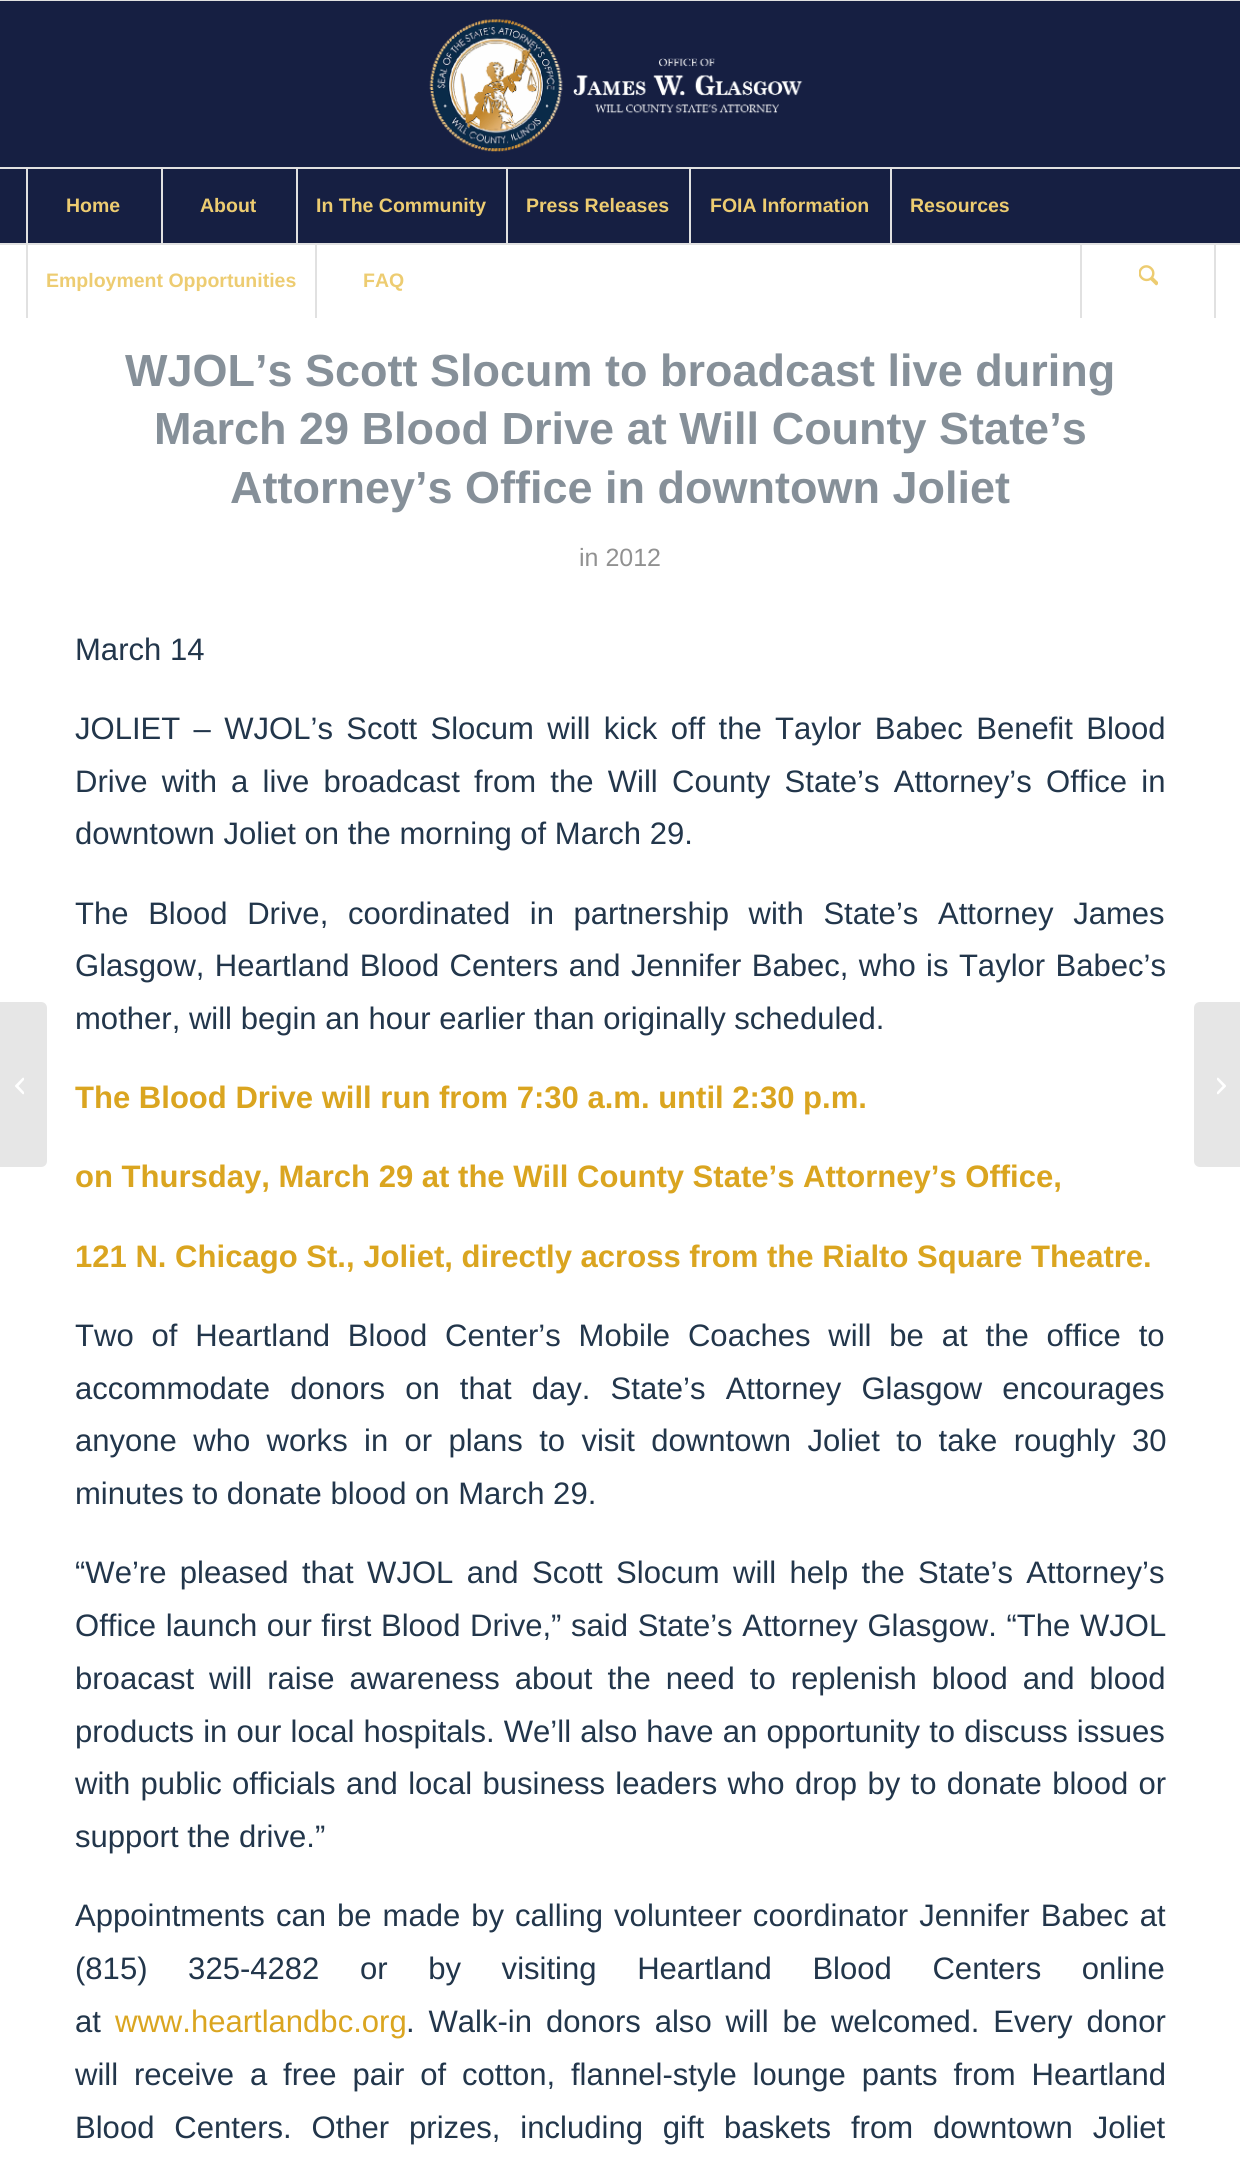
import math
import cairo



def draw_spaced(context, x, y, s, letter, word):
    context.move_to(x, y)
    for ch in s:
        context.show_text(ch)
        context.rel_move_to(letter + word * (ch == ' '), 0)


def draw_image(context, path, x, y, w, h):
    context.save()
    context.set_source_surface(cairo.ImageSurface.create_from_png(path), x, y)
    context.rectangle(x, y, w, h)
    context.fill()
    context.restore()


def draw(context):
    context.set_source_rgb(1, 1, 1)
    context.paint()
    context.set_source_rgb(22 / 255, 31 / 255, 66 / 255)
    context.rectangle(0, 1, 1240, 242)
    context.fill()
    context.set_source_rgb(225 / 255, 225 / 255, 225 / 255)
    context.rectangle(0, 0, 1240, 1)
    context.fill()
    context.rectangle(0, 243, 1240, 2)
    context.fill()
    draw_image(context, "images/1.png", 429, 19, 374, 133)
    context.rectangle(0, 167, 1240, 2)
    context.fill()
    context.rectangle(26, 168, 2, 150)
    context.fill()
    context.rectangle(161, 168, 2, 75)
    context.fill()
    context.rectangle(296, 168, 2, 75)
    context.fill()
    context.rectangle(506, 168, 2, 75)
    context.fill()
    context.rectangle(689, 168, 2, 75)
    context.fill()
    context.rectangle(890, 168, 2, 75)
    context.fill()
    context.rectangle(315, 243, 2, 75)
    context.fill()
    context.rectangle(1214, 243, 2, 75)
    context.fill()
    context.rectangle(1080, 243, 2, 75)
    context.fill()
    draw_image(context, "images/2.png", 1139, 265, 19, 21)
    context.set_source_rgb(230 / 255, 230 / 255, 230 / 255)
    context.new_path()
    context.move_to(0, 1002)
    context.line_to(41, 1002)
    context.curve_to(44.5, 1002, 47, 1004.5, 47, 1008)
    context.line_to(47, 1161)
    context.curve_to(47, 1164.5, 44.5, 1167, 41, 1167)
    context.line_to(0, 1167)
    context.close_path()
    context.fill()
    draw_image(context, "images/3.png", 15, 1077, 9, 18)
    context.new_path()
    context.move_to(1200, 1002)
    context.line_to(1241, 1002)
    context.line_to(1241, 1167)
    context.line_to(1200, 1167)
    context.curve_to(1196.5, 1167, 1194, 1164.5, 1194, 1161)
    context.line_to(1194, 1008)
    context.curve_to(1194, 1004.5, 1196.5, 1002, 1200, 1002)
    context.close_path()
    context.fill()
    draw_image(context, "images/4.png", 1217, 1077, 9, 18)
    context.select_font_face("Liberation Sans", cairo.FontSlant.NORMAL, cairo.FontWeight.BOLD)
    context.set_font_size(19.5)
    context.set_source_rgb(237 / 255, 204 / 255, 113 / 255)
    context.move_to(66, 212)
    context.show_text("Home")
    context.move_to(200, 212)
    context.show_text("About")
    context.move_to(316, 212)
    context.show_text("In The Community")
    context.move_to(526, 212)
    context.show_text("Press Releases")
    context.move_to(710, 212)
    context.show_text("FOIA Information")
    context.move_to(910, 212)
    context.show_text("Resources")
    context.move_to(46, 287)
    context.show_text("Employment Opportunities")
    context.move_to(363, 287)
    context.show_text("FAQ")
    context.set_font_size(45)
    context.set_source_rgb(134 / 255, 144 / 255, 153 / 255)
    context.move_to(125, 386)
    context.show_text("WJOL’s Scott Slocum to broadcast live during")
    context.move_to(154, 444)
    context.show_text("March 29 Blood Drive at Will County State’s")
    context.move_to(230, 503)
    context.show_text("Attorney’s Office in downtown Joliet")
    context.select_font_face("Liberation Sans")
    context.set_font_size(25)
    context.set_source_rgb(145 / 255, 145 / 255, 145 / 255)
    context.move_to(579, 566)
    context.show_text("in 2012")
    context.set_font_size(31.05)
    context.set_source_rgb(34 / 255, 54 / 255, 75 / 255)
    context.move_to(75, 660)
    context.show_text("March 14")
    draw_spaced(context, 75, 739, "JOLIET – WJOL’s Scott Slocum will kick off the Taylor Babec Benefit Blood", 0, 4.75)
    draw_spaced(context, 75, 792, "Drive with a live broadcast from the Will County State’s Attorney’s Office in", 0, 5.6)
    context.move_to(75, 844)
    context.show_text("downtown Joliet on the morning of March 29.")
    draw_spaced(context, 75, 924, "The Blood Drive, coordinated in partnership with State’s Attorney James", 0, 11)
    draw_spaced(context, 75, 976, "Glasgow, Heartland Blood Centers and Jennifer Babec, who is Taylor Babec’s", 0, 1.75)
    context.move_to(75, 1029)
    context.show_text("mother, will begin an hour earlier than originally scheduled.")
    context.select_font_face("Liberation Sans", cairo.FontSlant.NORMAL, cairo.FontWeight.BOLD)
    context.set_source_rgb(218 / 255, 165 / 255, 32 / 255)
    context.move_to(75, 1108)
    context.show_text("The Blood Drive will run from 7:30 a.m. until 2:30 p.m.")
    context.move_to(75, 1187)
    context.show_text("on Thursday, March 29 at the Will County State’s Attorney’s Office,")
    context.move_to(75, 1267)
    context.show_text("121 N. Chicago St., Joliet, directly across from the Rialto Square Theatre.")
    context.select_font_face("Liberation Sans")
    context.set_source_rgb(34 / 255, 54 / 255, 75 / 255)
    draw_spaced(context, 75, 1346, "Two of Heartland Blood Center’s Mobile Coaches will be at the office to", 0, 9.25)
    draw_spaced(context, 75, 1399, "accommodate donors on that day. State’s Attorney Glasgow encourages", 0, 11.5)
    draw_spaced(context, 75, 1451, "anyone who works in or plans to visit downtown Joliet to take roughly 30", 0, 7.75)
    context.move_to(75, 1504)
    context.show_text("minutes to donate blood on March 29.")
    draw_spaced(context, 75, 1583, "“We’re pleased that WJOL and Scott Slocum will help the State’s Attorney’s", 0, 4.75)
    draw_spaced(context, 75, 1636, "Office launch our first Blood Drive,” said State’s Attorney Glasgow. “The WJOL", 0, 1)
    draw_spaced(context, 75, 1689, "broacast will raise awareness about the need to replenish blood and blood", 0, 6.4)
    draw_spaced(context, 75, 1742, "products in our local hospitals. We’ll also have an opportunity to discuss issues", 0, 0.5)
    draw_spaced(context, 75, 1794, "with public officials and local business leaders who drop by to donate blood or", 0, 1.75)
    context.move_to(75, 1847)
    context.show_text("support the drive.”")
    draw_spaced(context, 75, 1926, "Appointments can be made by calling volunteer coordinator Jennifer Babec at", 0, 2.4)
    draw_spaced(context, 75, 1979, "(815) 325-4282 or by visiting Heartland Blood Centers online", 0, 32)
    context.move_to(75, 2032)
    context.show_text("at")
    context.set_source_rgb(218 / 255, 165 / 255, 32 / 255)
    context.move_to(115, 2032)
    context.show_text("www.heartlandbc.org")
    context.set_source_rgb(34 / 255, 54 / 255, 75 / 255)
    draw_spaced(context, 406, 2032, ". Walk-in donors also will be welcomed. Every donor", 0, 5.25)
    draw_spaced(context, 75, 2085, "will receive a free pair of cotton, flannel-style lounge pants from Heartland", 0, 7.25)
    draw_spaced(context, 75, 2138, "Blood Centers. Other prizes, including gift baskets from downtown Joliet", 0, 11.25)


surface = cairo.ImageSurface(cairo.Format.RGB24, 1240, 2169)
context = cairo.Context(surface)
options = cairo.FontOptions()
options.set_hint_metrics(cairo.HintMetrics.OFF)
options.set_hint_style(cairo.HintStyle.NONE)
context.set_font_options(options)
context.set_miter_limit(4)
draw(context)
surface.write_to_png("out.png")
